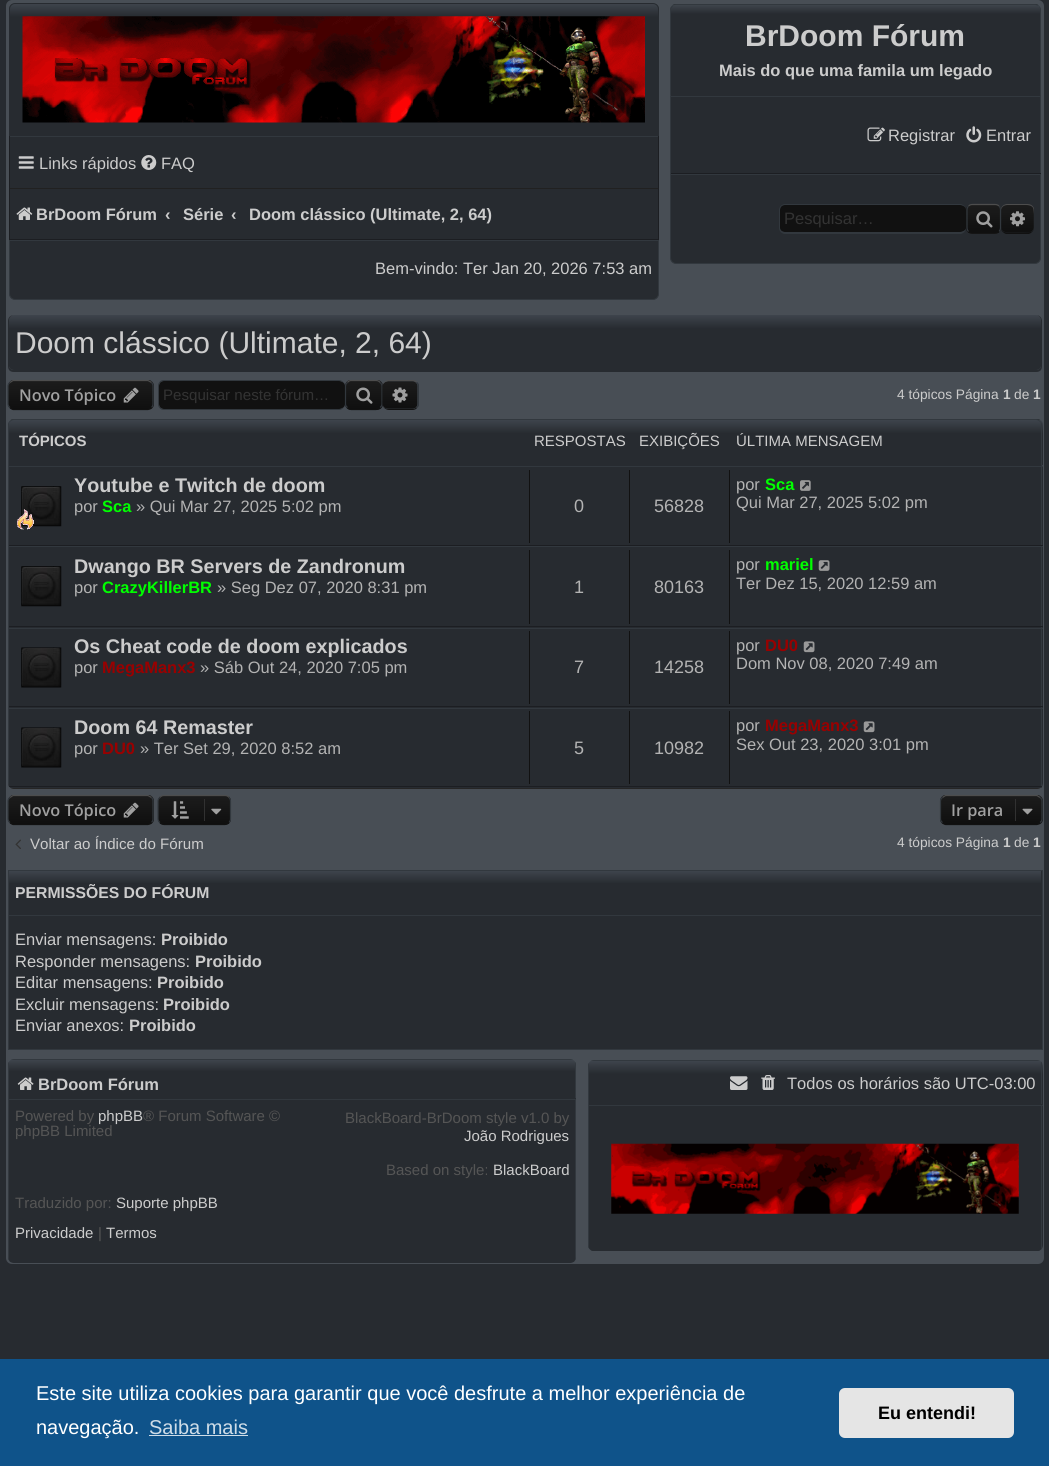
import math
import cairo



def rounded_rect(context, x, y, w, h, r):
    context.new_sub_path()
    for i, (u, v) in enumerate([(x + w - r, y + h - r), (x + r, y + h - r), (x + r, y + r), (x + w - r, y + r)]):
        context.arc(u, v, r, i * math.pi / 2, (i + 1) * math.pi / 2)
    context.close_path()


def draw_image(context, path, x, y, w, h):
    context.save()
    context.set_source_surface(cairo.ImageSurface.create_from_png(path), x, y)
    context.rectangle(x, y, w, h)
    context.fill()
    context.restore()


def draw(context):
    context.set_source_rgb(39 / 255, 43 / 255, 48 / 255)
    context.paint()
    context.set_source_rgb(72 / 255, 78 / 255, 85 / 255)
    rounded_rect(context, 6, 0, 1038, 1264, 6)
    context.fill()
    context.save()
    context.new_path()
    context.move_to(15, 3)
    context.line_to(653, 3)
    context.curve_to(656.5, 3, 659, 5.5, 659, 9)
    context.line_to(659, 136)
    context.line_to(9, 136)
    context.line_to(9, 9)
    context.curve_to(9, 5.5, 11.5, 3, 15, 3)
    context.close_path()
    context.clip()
    gradient = cairo.LinearGradient(334, 3.7, 334, 135)
    gradient.add_color_stop_rgba(0, 62 / 255, 68 / 255, 76 / 255, 1)
    gradient.add_color_stop_rgba(0.1, 39 / 255, 43 / 255, 48 / 255, 1)
    gradient.add_color_stop_rgba(1, 39 / 255, 43 / 255, 48 / 255, 1)
    context.set_source(gradient)
    context.rectangle(9, 4, 650, 131)
    context.fill()
    context.restore()
    context.new_path()
    context.move_to(15, 3.5)
    context.line_to(653, 3.5)
    context.curve_to(656, 3.5, 658.5, 6, 658.5, 9)
    context.line_to(658.5, 135.5)
    context.line_to(9.5, 135.5)
    context.line_to(9.5, 9)
    context.curve_to(9.5, 6, 12, 3.5, 15, 3.5)
    context.close_path()
    context.set_source_rgb(39 / 255, 43 / 255, 48 / 255)
    context.set_line_width(1)
    context.stroke()
    draw_image(context, "images/1.png", 22, 16, 623, 107)
    context.save()
    context.new_path()
    context.move_to(676, 4)
    context.line_to(1035, 4)
    context.curve_to(1038.5, 4, 1041, 6.5, 1041, 10)
    context.line_to(1041, 96)
    context.line_to(670, 96)
    context.line_to(670, 10)
    context.curve_to(670, 6.5, 672.5, 4, 676, 4)
    context.close_path()
    context.clip()
    gradient = cairo.LinearGradient(856, -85, 856, 5)
    gradient.add_color_stop_rgba(0, 62 / 255, 68 / 255, 76 / 255, 1)
    gradient.add_color_stop_rgba(0.1, 39 / 255, 43 / 255, 48 / 255, 1)
    gradient.add_color_stop_rgba(1, 39 / 255, 43 / 255, 48 / 255, 1)
    context.set_source(gradient)
    context.rectangle(670, 4, 371, 1)
    context.fill()
    gradient = cairo.LinearGradient(856, 5, 856, 95)
    gradient.add_color_stop_rgba(0, 62 / 255, 68 / 255, 76 / 255, 1)
    gradient.add_color_stop_rgba(0.1, 39 / 255, 43 / 255, 48 / 255, 1)
    gradient.add_color_stop_rgba(1, 39 / 255, 43 / 255, 48 / 255, 1)
    context.set_source(gradient)
    context.rectangle(670, 5, 371, 90)
    context.fill()
    context.restore()
    context.set_source_rgb(50 / 255, 56 / 255, 62 / 255)
    context.new_path()
    context.move_to(676, 4)
    context.curve_to(675, 4, 673, 5, 672, 6)
    context.line_to(673, 6)
    context.curve_to(673, 5, 675, 5, 676, 5)
    context.line_to(1035, 5)
    context.curve_to(1036, 5, 1038, 6, 1039, 6)
    context.curve_to(1038, 5, 1036, 4, 1035, 4)
    context.close_path()
    context.fill()
    context.new_path()
    context.move_to(1041, 96)
    context.line_to(1041, 9)
    context.line_to(1039, 6)
    context.line_to(1040, 9)
    context.line_to(1040, 95)
    context.close_path()
    context.fill()
    context.set_source_rgb(39 / 255, 43 / 255, 48 / 255)
    context.new_path()
    context.move_to(1041, 96)
    context.line_to(1040, 95)
    context.line_to(671, 95)
    context.line_to(670, 96)
    context.close_path()
    context.fill()
    context.set_source_rgb(50 / 255, 56 / 255, 62 / 255)
    context.new_path()
    context.move_to(670, 10)
    context.line_to(670, 96)
    context.line_to(671, 95)
    context.line_to(671, 9)
    context.line_to(673, 6)
    context.line_to(672, 6)
    context.curve_to(671, 7, 670, 8, 670, 10)
    context.close_path()
    context.fill()
    context.set_source_rgb(39 / 255, 43 / 255, 48 / 255)
    context.rectangle(671, 97, 369, 76)
    context.fill()
    context.set_source_rgb(50 / 255, 56 / 255, 62 / 255)
    context.rectangle(670, 96, 371, 1)
    context.fill()
    context.rectangle(1040, 96, 1, 78)
    context.fill()
    context.set_source_rgb(28 / 255, 30 / 255, 34 / 255)
    context.rectangle(670, 173, 371, 1)
    context.fill()
    context.set_source_rgb(50 / 255, 56 / 255, 62 / 255)
    context.rectangle(670, 96, 1, 78)
    context.fill()
    draw_image(context, "images/2.png", 867, 127, 18, 15)
    draw_image(context, "images/3.png", 966, 126, 16, 17)
    context.set_source_rgb(39 / 255, 43 / 255, 48 / 255)
    context.rectangle(10, 137, 648, 102)
    context.fill()
    context.set_source_rgb(50 / 255, 56 / 255, 62 / 255)
    context.rectangle(9, 136, 650, 1)
    context.fill()
    context.set_source_rgb(28 / 255, 30 / 255, 34 / 255)
    context.rectangle(658, 136, 1, 104)
    context.fill()
    context.rectangle(9, 239, 650, 1)
    context.fill()
    context.rectangle(9, 136, 1, 104)
    context.fill()
    draw_image(context, "images/4.png", 18, 156, 16, 13)
    draw_image(context, "images/5.png", 141, 155, 16, 15)
    context.set_source_rgb(33 / 255, 33 / 255, 33 / 255)
    context.rectangle(10, 188, 648, 1)
    context.fill()
    draw_image(context, "images/6.png", 16, 207, 17, 13)
    context.set_source_rgb(39 / 255, 43 / 255, 48 / 255)
    context.new_path()
    context.move_to(670.5, 174.5)
    context.line_to(1040.5, 174.5)
    context.line_to(1040.5, 258)
    context.curve_to(1040.5, 261, 1038, 263.5, 1035, 263.5)
    context.line_to(676, 263.5)
    context.curve_to(673, 263.5, 670.5, 261, 670.5, 258)
    context.close_path()
    context.fill_preserve()
    context.set_source_rgb(50 / 255, 56 / 255, 62 / 255)
    context.stroke()
    context.set_source_rgb(17 / 255, 17 / 255, 17 / 255)
    context.new_path()
    context.move_to(785, 205)
    context.line_to(960, 205)
    context.curve_to(963, 205, 966, 207, 966, 210)
    context.line_to(966, 228)
    context.curve_to(966, 230, 963, 232, 960, 232)
    context.line_to(785, 232)
    context.curve_to(782, 232, 780, 230, 780, 228)
    context.line_to(780, 210)
    context.curve_to(780, 207, 782, 205, 785, 205)
    context.close_path()
    context.fill()
    context.set_source_rgb(50 / 255, 56 / 255, 62 / 255)
    context.set_fill_rule(cairo.FillRule.EVEN_ODD)
    context.new_path()
    context.move_to(785, 204)
    context.line_to(960, 204)
    context.curve_to(963, 204, 966, 207, 966, 210)
    context.line_to(966, 228)
    context.curve_to(966, 231, 963, 234, 960, 234)
    context.line_to(785, 234)
    context.curve_to(782, 234, 779, 231, 779, 228)
    context.line_to(779, 210)
    context.curve_to(779, 207, 782, 204, 785, 204)
    context.close_path()
    context.move_to(785, 205)
    context.line_to(960, 205)
    context.curve_to(963, 205, 966, 207, 966, 210)
    context.line_to(966, 228)
    context.curve_to(966, 230, 963, 232, 960, 232)
    context.line_to(785, 232)
    context.curve_to(782, 232, 780, 230, 780, 228)
    context.line_to(780, 210)
    context.curve_to(780, 207, 782, 205, 785, 205)
    context.close_path()
    context.fill()
    context.save()
    context.set_fill_rule(cairo.FillRule.WINDING)
    rounded_rect(context, 966, 204, 35, 30, 6)
    context.clip()
    gradient = cairo.LinearGradient(984, 205, 984, 233)
    gradient.add_color_stop_rgba(0, 28 / 255, 28 / 255, 28 / 255, 1)
    gradient.add_color_stop_rgba(1, 15 / 255, 15 / 255, 15 / 255, 1)
    context.set_source(gradient)
    context.rectangle(966, 205, 35, 28)
    context.fill()
    gradient = cairo.LinearGradient(984, 233, 984, 260)
    gradient.add_color_stop_rgba(0, 28 / 255, 28 / 255, 28 / 255, 1)
    gradient.add_color_stop_rgba(1, 15 / 255, 15 / 255, 15 / 255, 1)
    context.set_source(gradient)
    context.rectangle(966, 233, 35, 1)
    context.fill()
    context.restore()
    context.new_path()
    context.move_to(968.5, 206)
    context.curve_to(969.5, 205, 971, 204.5, 972.5, 204.5)
    context.line_to(995, 204.5)
    context.curve_to(996.5, 204.5, 998, 205, 999, 206)
    context.set_source_rgb(77 / 255, 77 / 255, 77 / 255)
    context.set_line_width(1.2)
    context.stroke()
    context.new_path()
    context.move_to(999, 206)
    context.curve_to(1000, 207, 1000.5, 208.5, 1000.5, 210)
    context.line_to(1000.5, 227.5)
    context.curve_to(1000.5, 229, 1000, 230.5, 999, 231.5)
    context.set_source_rgb(50 / 255, 56 / 255, 62 / 255)
    context.stroke()
    context.new_path()
    context.move_to(999, 231.5)
    context.curve_to(998, 232.5, 996.5, 233, 995, 233)
    context.line_to(972.5, 233)
    context.curve_to(971, 233, 969.5, 232.5, 968.5, 231.5)
    context.set_source_rgb(17 / 255, 17 / 255, 17 / 255)
    context.stroke()
    context.new_path()
    context.move_to(968.5, 231.5)
    context.curve_to(967.5, 230.5, 967, 229, 967, 227.5)
    context.line_to(967, 210)
    context.curve_to(967, 208.5, 967.5, 207, 968.5, 206)
    context.set_source_rgb(50 / 255, 56 / 255, 62 / 255)
    context.stroke()
    draw_image(context, "images/7.png", 976, 211, 17, 17)
    draw_image(context, "images/8.png", 1001, 205, 33, 28)
    context.set_source_rgb(77 / 255, 77 / 255, 77 / 255)
    context.set_fill_rule(cairo.FillRule.WINDING)
    context.new_path()
    context.move_to(1007.5, 204)
    context.curve_to(1004, 204, 1001, 206.5, 1001, 209.5)
    context.curve_to(1002, 207, 1003.5, 205, 1007.5, 205)
    context.line_to(1022.5, 205)
    context.curve_to(1026.5, 205, 1032.5, 204.5, 1033.5, 209)
    context.line_to(1034, 214)
    context.line_to(1034, 208.5)
    context.curve_to(1033, 205.5, 1030.5, 204, 1027.5, 204)
    context.close_path()
    context.fill()
    context.set_source_rgb(17 / 255, 17 / 255, 17 / 255)
    context.new_path()
    context.move_to(1006, 234)
    context.curve_to(1003, 233, 1001, 230.5, 1001, 228)
    context.curve_to(1002, 230.5, 1003.5, 232.5, 1007.5, 232.5)
    context.line_to(1024, 232.5)
    context.curve_to(1031, 232.5, 1033, 231.5, 1034, 228.5)
    context.line_to(1034, 229)
    context.curve_to(1033, 231.5, 1031.5, 233, 1029, 234)
    context.close_path()
    context.fill()
    draw_image(context, "images/9.png", 1010, 211, 15, 16)
    context.set_source_rgb(39 / 255, 43 / 255, 48 / 255)
    context.new_path()
    context.move_to(9.5, 240.5)
    context.line_to(658.5, 240.5)
    context.line_to(658.5, 294)
    context.curve_to(658.5, 297, 656, 299.5, 653, 299.5)
    context.line_to(15, 299.5)
    context.curve_to(12, 299.5, 9.5, 297, 9.5, 294)
    context.close_path()
    context.fill_preserve()
    context.set_source_rgb(50 / 255, 56 / 255, 62 / 255)
    context.set_line_width(1)
    context.stroke()
    gradient = cairo.LinearGradient(525, 315, 525, 370)
    gradient.add_color_stop_rgba(0, 62 / 255, 68 / 255, 76 / 255, 1)
    gradient.add_color_stop_rgba(0.25, 39 / 255, 43 / 255, 48 / 255, 1)
    gradient.add_color_stop_rgba(1, 39 / 255, 43 / 255, 48 / 255, 1)
    context.set_source(gradient)
    context.new_path()
    context.move_to(14, 315)
    context.line_to(1036, 315)
    context.curve_to(1039, 315, 1041, 318, 1041, 321)
    context.line_to(1041, 366)
    context.curve_to(1041, 368, 1039, 370, 1036, 370)
    context.line_to(14, 370)
    context.curve_to(11, 370, 9, 368, 9, 366)
    context.line_to(9, 321)
    context.curve_to(9, 318, 11, 315, 14, 315)
    context.close_path()
    context.fill()
    context.set_source_rgb(39 / 255, 43 / 255, 48 / 255)
    context.set_fill_rule(cairo.FillRule.EVEN_ODD)
    context.new_path()
    context.move_to(14, 315)
    context.line_to(1036, 315)
    context.curve_to(1040, 315, 1042, 318, 1042, 321)
    context.line_to(1042, 366)
    context.curve_to(1042, 370, 1040, 372, 1036, 372)
    context.line_to(14, 372)
    context.curve_to(10, 372, 8, 370, 8, 366)
    context.line_to(8, 321)
    context.curve_to(8, 318, 10, 315, 14, 315)
    context.close_path()
    context.move_to(14, 315)
    context.line_to(1036, 315)
    context.curve_to(1039, 315, 1041, 318, 1041, 321)
    context.line_to(1041, 366)
    context.curve_to(1041, 368, 1039, 370, 1036, 370)
    context.line_to(14, 370)
    context.curve_to(11, 370, 9, 368, 9, 366)
    context.line_to(9, 321)
    context.curve_to(9, 318, 11, 315, 14, 315)
    context.close_path()
    context.fill()
    context.save()
    context.set_fill_rule(cairo.FillRule.WINDING)
    rounded_rect(context, 8, 380, 146, 30, 6)
    context.clip()
    gradient = cairo.LinearGradient(81, 354, 81, 381)
    gradient.add_color_stop_rgba(0, 28 / 255, 28 / 255, 28 / 255, 1)
    gradient.add_color_stop_rgba(1, 15 / 255, 15 / 255, 15 / 255, 1)
    context.set_source(gradient)
    context.rectangle(8, 380, 146, 1)
    context.fill()
    gradient = cairo.LinearGradient(81, 381, 81, 409)
    gradient.add_color_stop_rgba(0, 28 / 255, 28 / 255, 28 / 255, 1)
    gradient.add_color_stop_rgba(1, 15 / 255, 15 / 255, 15 / 255, 1)
    context.set_source(gradient)
    context.rectangle(8, 381, 146, 28)
    context.fill()
    gradient = cairo.LinearGradient(81, 409, 81, 436)
    gradient.add_color_stop_rgba(0, 28 / 255, 28 / 255, 28 / 255, 1)
    gradient.add_color_stop_rgba(1, 15 / 255, 15 / 255, 15 / 255, 1)
    context.set_source(gradient)
    context.rectangle(8, 409, 146, 1)
    context.fill()
    context.restore()
    context.new_path()
    context.move_to(10, 382.5)
    context.line_to(13, 380.5)
    context.line_to(148, 380.5)
    context.line_to(151.5, 382.5)
    context.set_source_rgb(77 / 255, 77 / 255, 77 / 255)
    context.set_line_width(1.2)
    context.stroke()
    context.new_path()
    context.move_to(151.5, 382.5)
    context.curve_to(152.5, 383.5, 153, 385, 153, 386)
    context.line_to(153, 404)
    context.curve_to(153, 405, 152.5, 406.5, 151.5, 407.5)
    context.set_source_rgb(50 / 255, 56 / 255, 62 / 255)
    context.stroke()
    context.new_path()
    context.move_to(151.5, 407.5)
    context.line_to(148, 409.5)
    context.line_to(13, 409.5)
    context.line_to(10, 407.5)
    context.set_source_rgb(17 / 255, 17 / 255, 17 / 255)
    context.stroke()
    context.new_path()
    context.move_to(10, 407.5)
    context.curve_to(8.5, 406.5, 8, 405, 8, 404)
    context.line_to(8, 386)
    context.curve_to(8, 385, 8.5, 383.5, 10, 382.5)
    context.set_source_rgb(50 / 255, 56 / 255, 62 / 255)
    context.stroke()
    draw_image(context, "images/10.png", 123, 387, 16, 16)
    context.set_source_rgb(17 / 255, 17 / 255, 17 / 255)
    context.set_fill_rule(cairo.FillRule.WINDING)
    context.new_path()
    context.move_to(164, 381)
    context.line_to(339, 381)
    context.curve_to(342, 381, 345, 383, 345, 386)
    context.line_to(345, 404)
    context.curve_to(345, 407, 342, 409, 339, 409)
    context.line_to(164, 409)
    context.curve_to(161, 409, 159, 407, 159, 404)
    context.line_to(159, 386)
    context.curve_to(159, 383, 161, 381, 164, 381)
    context.close_path()
    context.fill()
    context.set_source_rgb(50 / 255, 56 / 255, 62 / 255)
    context.set_fill_rule(cairo.FillRule.EVEN_ODD)
    context.new_path()
    context.move_to(164, 380)
    context.line_to(339, 380)
    context.curve_to(342, 380, 345, 383, 345, 386)
    context.line_to(345, 404)
    context.curve_to(345, 407, 342, 410, 339, 410)
    context.line_to(164, 410)
    context.curve_to(160, 410, 158, 407, 158, 404)
    context.line_to(158, 386)
    context.curve_to(158, 383, 160, 380, 164, 380)
    context.close_path()
    context.move_to(164, 381)
    context.line_to(339, 381)
    context.curve_to(342, 381, 345, 383, 345, 386)
    context.line_to(345, 404)
    context.curve_to(345, 407, 342, 409, 339, 409)
    context.line_to(164, 409)
    context.curve_to(161, 409, 159, 407, 159, 404)
    context.line_to(159, 386)
    context.curve_to(159, 383, 161, 381, 164, 381)
    context.close_path()
    context.fill()
    context.save()
    context.set_fill_rule(cairo.FillRule.WINDING)
    rounded_rect(context, 345, 380, 38, 30, 6)
    context.clip()
    gradient = cairo.LinearGradient(364, 354, 364, 381)
    gradient.add_color_stop_rgba(0, 28 / 255, 28 / 255, 28 / 255, 1)
    gradient.add_color_stop_rgba(1, 15 / 255, 15 / 255, 15 / 255, 1)
    context.set_source(gradient)
    context.rectangle(345, 380, 38, 1)
    context.fill()
    gradient = cairo.LinearGradient(364, 381, 364, 409)
    gradient.add_color_stop_rgba(0, 28 / 255, 28 / 255, 28 / 255, 1)
    gradient.add_color_stop_rgba(1, 15 / 255, 15 / 255, 15 / 255, 1)
    context.set_source(gradient)
    context.rectangle(345, 381, 38, 28)
    context.fill()
    gradient = cairo.LinearGradient(364, 409, 364, 436)
    gradient.add_color_stop_rgba(0, 28 / 255, 28 / 255, 28 / 255, 1)
    gradient.add_color_stop_rgba(1, 15 / 255, 15 / 255, 15 / 255, 1)
    context.set_source(gradient)
    context.rectangle(345, 409, 38, 1)
    context.fill()
    context.restore()
    context.new_path()
    context.move_to(347.5, 382.5)
    context.curve_to(348.5, 381, 350, 380.5, 351, 380.5)
    context.line_to(376, 380.5)
    context.curve_to(377.5, 380.5, 379, 381, 380, 382.5)
    context.set_source_rgb(77 / 255, 77 / 255, 77 / 255)
    context.stroke()
    context.new_path()
    context.move_to(380, 382.5)
    context.curve_to(381.5, 383.5, 382, 385, 382, 386)
    context.line_to(382, 404)
    context.curve_to(382, 405, 381.5, 406.5, 380, 407.5)
    context.set_source_rgb(50 / 255, 56 / 255, 62 / 255)
    context.stroke()
    context.new_path()
    context.move_to(380, 407.5)
    context.curve_to(379, 409, 377.5, 409.5, 376, 409.5)
    context.line_to(351, 409.5)
    context.curve_to(350, 409.5, 348.5, 409, 347.5, 407.5)
    context.set_source_rgb(17 / 255, 17 / 255, 17 / 255)
    context.stroke()
    context.new_path()
    context.move_to(347.5, 407.5)
    context.curve_to(346, 406.5, 345.5, 405, 345.5, 404)
    context.line_to(345.5, 386)
    context.curve_to(345.5, 385, 346, 383.5, 347.5, 382.5)
    context.set_source_rgb(50 / 255, 56 / 255, 62 / 255)
    context.stroke()
    draw_image(context, "images/11.png", 356, 387, 17, 17)
    draw_image(context, "images/12.png", 382, 381, 36, 28)
    context.set_source_rgb(77 / 255, 77 / 255, 77 / 255)
    context.set_fill_rule(cairo.FillRule.WINDING)
    context.new_path()
    context.move_to(389, 380)
    context.curve_to(385.5, 380, 382.5, 383, 382.5, 386)
    context.curve_to(382.5, 383.5, 385.5, 381, 389, 381)
    context.line_to(412.5, 381)
    context.curve_to(414, 381, 415.5, 381.5, 416, 382.5)
    context.line_to(417, 382)
    context.curve_to(416, 380.5, 414, 380, 412.5, 380)
    context.close_path()
    context.fill()
    context.set_source_rgb(50 / 255, 56 / 255, 62 / 255)
    context.new_path()
    context.move_to(416, 407.5)
    context.curve_to(417, 406.5, 417.5, 405, 417.5, 404)
    context.line_to(417.5, 386)
    context.curve_to(417.5, 385, 417, 383.5, 416, 382.5)
    context.line_to(417, 382)
    context.curve_to(418, 382.5, 418.5, 383.5, 419, 384.5)
    context.line_to(419, 405.5)
    context.curve_to(418.5, 406.5, 418, 407.5, 417, 408)
    context.close_path()
    context.fill()
    context.set_source_rgb(17 / 255, 17 / 255, 17 / 255)
    context.new_path()
    context.move_to(389, 410)
    context.line_to(412.5, 410)
    context.curve_to(414, 410, 416, 409.5, 417, 408)
    context.line_to(416, 407.5)
    context.curve_to(415.5, 408.5, 414, 409, 412.5, 409)
    context.line_to(389, 409)
    context.curve_to(385.5, 409, 382.5, 406.5, 382.5, 404)
    context.curve_to(382.5, 407, 385.5, 410, 389, 410)
    context.close_path()
    context.fill()
    draw_image(context, "images/13.png", 392, 387, 16, 16)
    context.save()
    context.new_path()
    context.move_to(14, 419)
    context.line_to(1037, 419)
    context.curve_to(1040.5, 419, 1043, 421.5, 1043, 425)
    context.line_to(1043, 466)
    context.line_to(8, 466)
    context.line_to(8, 425)
    context.curve_to(8, 421.5, 10.5, 419, 14, 419)
    context.close_path()
    context.clip()
    gradient = cairo.LinearGradient(525, 375, 525, 420)
    gradient.add_color_stop_rgba(0, 62 / 255, 68 / 255, 76 / 255, 1)
    gradient.add_color_stop_rgba(0.3, 39 / 255, 43 / 255, 48 / 255, 1)
    gradient.add_color_stop_rgba(1, 39 / 255, 43 / 255, 48 / 255, 1)
    context.set_source(gradient)
    context.rectangle(8, 419, 1035, 1)
    context.fill()
    gradient = cairo.LinearGradient(525, 420, 525, 465)
    gradient.add_color_stop_rgba(0, 62 / 255, 68 / 255, 76 / 255, 1)
    gradient.add_color_stop_rgba(0.3, 39 / 255, 43 / 255, 48 / 255, 1)
    gradient.add_color_stop_rgba(1, 39 / 255, 43 / 255, 48 / 255, 1)
    context.set_source(gradient)
    context.rectangle(8, 420, 1035, 45)
    context.fill()
    context.restore()
    gradient = cairo.LinearGradient(525, 465, 525, 510)
    gradient.add_color_stop_rgba(0, 62 / 255, 68 / 255, 76 / 255, 1)
    gradient.add_color_stop_rgba(0.3, 39 / 255, 43 / 255, 48 / 255, 1)
    gradient.add_color_stop_rgba(1, 39 / 255, 43 / 255, 48 / 255, 1)
    context.set_source(gradient)
    context.rectangle(8, 465, 1035, 1)
    context.fill()
    context.set_source_rgb(50 / 255, 56 / 255, 62 / 255)
    context.new_path()
    context.move_to(14, 419)
    context.curve_to(12, 419, 11, 420, 10, 421)
    context.line_to(10, 422)
    context.curve_to(11, 421, 12, 420, 14, 420)
    context.line_to(1036, 420)
    context.curve_to(1038, 420, 1039, 421, 1040, 422)
    context.line_to(1040, 421)
    context.curve_to(1039, 420, 1038, 419, 1036, 419)
    context.close_path()
    context.fill()
    context.new_path()
    context.move_to(1042, 466)
    context.line_to(1042, 425)
    context.curve_to(1042, 423, 1041, 422, 1040, 421)
    context.line_to(1040, 422)
    context.curve_to(1041, 422, 1041, 424, 1041, 425)
    context.line_to(1041, 465)
    context.close_path()
    context.fill()
    context.set_source_rgb(39 / 255, 43 / 255, 48 / 255)
    context.new_path()
    context.move_to(1042, 466)
    context.line_to(8, 466)
    context.line_to(9, 465)
    context.line_to(1041, 465)
    context.close_path()
    context.fill()
    context.set_source_rgb(50 / 255, 56 / 255, 62 / 255)
    context.new_path()
    context.move_to(10, 421)
    context.curve_to(9, 422, 8, 423, 8, 425)
    context.line_to(8, 466)
    context.line_to(9, 465)
    context.line_to(9, 425)
    context.curve_to(9, 424, 9, 422, 10, 422)
    context.close_path()
    context.fill()
    context.set_source_rgb(39 / 255, 43 / 255, 48 / 255)
    context.rectangle(9, 467, 1034, 78)
    context.fill()
    context.set_source_rgb(50 / 255, 56 / 255, 62 / 255)
    context.rectangle(8, 466, 1035, 1)
    context.fill()
    context.rectangle(1041, 466, 1, 80)
    context.fill()
    context.set_source_rgb(28 / 255, 30 / 255, 34 / 255)
    context.rectangle(8, 545, 1035, 1)
    context.fill()
    context.set_source_rgb(50 / 255, 56 / 255, 62 / 255)
    context.rectangle(8, 466, 1, 80)
    context.fill()
    draw_image(context, "images/14.png", 21, 486, 41, 41)
    draw_image(context, "images/15.png", 17, 509, 17, 21)
    context.set_source_rgb(17 / 255, 17 / 255, 17 / 255)
    context.rectangle(529, 470, 1, 73)
    context.fill()
    context.rectangle(629, 470, 1, 73)
    context.fill()
    context.rectangle(729, 470, 1, 73)
    context.fill()
    draw_image(context, "images/16.png", 800, 480, 11, 11)
    context.set_source_rgb(39 / 255, 43 / 255, 48 / 255)
    context.rectangle(9, 547, 1034, 81)
    context.fill()
    context.set_source_rgb(50 / 255, 56 / 255, 62 / 255)
    context.rectangle(8, 546, 1035, 1)
    context.fill()
    context.rectangle(1041, 546, 1, 82)
    context.fill()
    context.set_source_rgb(28 / 255, 30 / 255, 34 / 255)
    context.rectangle(8, 626, 1035, 1)
    context.fill()
    context.set_source_rgb(50 / 255, 56 / 255, 62 / 255)
    context.rectangle(8, 546, 1, 82)
    context.fill()
    draw_image(context, "images/14.png", 21, 566, 41, 41)
    context.set_source_rgb(17 / 255, 17 / 255, 17 / 255)
    context.rectangle(529, 550, 1, 74)
    context.fill()
    context.rectangle(629, 550, 1, 74)
    context.fill()
    context.rectangle(729, 550, 1, 74)
    context.fill()
    draw_image(context, "images/17.png", 818, 560, 12, 11)
    context.set_source_rgb(39 / 255, 43 / 255, 48 / 255)
    context.rectangle(9, 629, 1034, 79)
    context.fill()
    context.set_source_rgb(50 / 255, 56 / 255, 62 / 255)
    context.rectangle(8, 628, 1035, 1)
    context.fill()
    context.rectangle(1041, 628, 1, 80)
    context.fill()
    context.set_source_rgb(28 / 255, 30 / 255, 34 / 255)
    context.rectangle(8, 706, 1035, 1)
    context.fill()
    context.set_source_rgb(50 / 255, 56 / 255, 62 / 255)
    context.rectangle(8, 628, 1, 80)
    context.fill()
    draw_image(context, "images/18.png", 21, 647, 41, 41)
    context.set_source_rgb(17 / 255, 17 / 255, 17 / 255)
    context.rectangle(529, 631, 1, 73)
    context.fill()
    context.rectangle(629, 631, 1, 73)
    context.fill()
    context.rectangle(729, 631, 1, 73)
    context.fill()
    draw_image(context, "images/19.png", 803, 641, 12, 12)
    context.save()
    context.new_path()
    context.move_to(8, 466)
    context.line_to(1043, 466)
    context.line_to(1043, 783)
    context.curve_to(1043, 786.5, 1040.5, 789, 1037, 789)
    context.line_to(14, 789)
    context.curve_to(10.5, 789, 8, 786.5, 8, 783)
    context.close_path()
    context.clip()
    context.set_source_rgb(39 / 255, 43 / 255, 48 / 255)
    context.rectangle(8, 709, 1035, 79)
    context.fill()
    context.restore()
    context.set_source_rgb(50 / 255, 56 / 255, 62 / 255)
    context.rectangle(8, 708, 1035, 1)
    context.fill()
    context.rectangle(1041, 708, 1, 80)
    context.fill()
    context.save()
    context.new_path()
    context.move_to(8, 466)
    context.line_to(1043, 466)
    context.line_to(1043, 783)
    context.curve_to(1043, 786.5, 1040.5, 789, 1037, 789)
    context.line_to(14, 789)
    context.curve_to(10.5, 789, 8, 786.5, 8, 783)
    context.close_path()
    context.clip()
    context.set_source_rgb(28 / 255, 30 / 255, 34 / 255)
    context.rectangle(8, 786, 1035, 1)
    context.fill()
    context.set_source_rgb(50 / 255, 56 / 255, 62 / 255)
    context.rectangle(8, 708, 1, 80)
    context.fill()
    context.restore()
    draw_image(context, "images/18.png", 21, 727, 41, 41)
    context.set_source_rgb(17 / 255, 17 / 255, 17 / 255)
    context.rectangle(529, 711, 1, 73)
    context.fill()
    context.rectangle(629, 711, 1, 73)
    context.fill()
    context.rectangle(729, 711, 1, 73)
    context.fill()
    draw_image(context, "images/19.png", 863, 721, 12, 12)
    context.save()
    context.new_path()
    context.move_to(8, 466)
    context.line_to(1043, 466)
    context.line_to(1043, 783)
    context.curve_to(1043, 786.5, 1040.5, 789, 1037, 789)
    context.line_to(14, 789)
    context.curve_to(10.5, 789, 8, 786.5, 8, 783)
    context.close_path()
    context.clip()
    context.set_source_rgb(38 / 255, 38 / 255, 38 / 255)
    context.rectangle(8, 788, 1035, 1)
    context.fill()
    context.restore()
    context.save()
    rounded_rect(context, 8, 795, 146, 30, 6)
    context.clip()
    gradient = cairo.LinearGradient(81, 769, 81, 796)
    gradient.add_color_stop_rgba(0, 28 / 255, 28 / 255, 28 / 255, 1)
    gradient.add_color_stop_rgba(1, 15 / 255, 15 / 255, 15 / 255, 1)
    context.set_source(gradient)
    context.rectangle(8, 795, 146, 1)
    context.fill()
    gradient = cairo.LinearGradient(81, 796, 81, 824)
    gradient.add_color_stop_rgba(0, 28 / 255, 28 / 255, 28 / 255, 1)
    gradient.add_color_stop_rgba(1, 15 / 255, 15 / 255, 15 / 255, 1)
    context.set_source(gradient)
    context.rectangle(8, 796, 146, 28)
    context.fill()
    gradient = cairo.LinearGradient(81, 824, 81, 851)
    gradient.add_color_stop_rgba(0, 28 / 255, 28 / 255, 28 / 255, 1)
    gradient.add_color_stop_rgba(1, 15 / 255, 15 / 255, 15 / 255, 1)
    context.set_source(gradient)
    context.rectangle(8, 824, 146, 1)
    context.fill()
    context.restore()
    context.new_path()
    context.move_to(10, 797.5)
    context.line_to(13, 795.5)
    context.line_to(148, 795.5)
    context.line_to(151.5, 797.5)
    context.set_source_rgb(77 / 255, 77 / 255, 77 / 255)
    context.stroke()
    context.new_path()
    context.move_to(151.5, 797.5)
    context.curve_to(152.5, 798.5, 153, 800, 153, 801)
    context.line_to(153, 819)
    context.curve_to(153, 820, 152.5, 821.5, 151.5, 822.5)
    context.set_source_rgb(50 / 255, 56 / 255, 62 / 255)
    context.stroke()
    context.new_path()
    context.move_to(151.5, 822.5)
    context.line_to(148, 824.5)
    context.line_to(13, 824.5)
    context.line_to(10, 822.5)
    context.set_source_rgb(17 / 255, 17 / 255, 17 / 255)
    context.stroke()
    context.new_path()
    context.move_to(10, 822.5)
    context.curve_to(8.5, 821.5, 8, 820, 8, 819)
    context.line_to(8, 801)
    context.curve_to(8, 800, 8.5, 798.5, 10, 797.5)
    context.set_source_rgb(50 / 255, 56 / 255, 62 / 255)
    context.stroke()
    draw_image(context, "images/10.png", 123, 802, 16, 16)
    context.save()
    rounded_rect(context, 158, 795, 73, 30, 6)
    context.clip()
    gradient = cairo.LinearGradient(194, 796, 194, 824)
    gradient.add_color_stop_rgba(0, 28 / 255, 28 / 255, 28 / 255, 1)
    gradient.add_color_stop_rgba(1, 15 / 255, 15 / 255, 15 / 255, 1)
    context.set_source(gradient)
    context.rectangle(158, 796, 73, 28)
    context.fill()
    context.restore()
    context.new_path()
    context.move_to(160, 797.5)
    context.curve_to(161, 796, 162.5, 795.5, 164, 795.5)
    context.line_to(225, 795.5)
    context.curve_to(226.5, 795.5, 228, 796, 229, 797.5)
    context.set_source_rgb(77 / 255, 77 / 255, 77 / 255)
    context.stroke()
    context.new_path()
    context.move_to(229, 797.5)
    context.curve_to(230, 798.5, 230.5, 800, 230.5, 801)
    context.line_to(230.5, 819)
    context.curve_to(230.5, 820, 230, 821.5, 229, 822.5)
    context.set_source_rgb(50 / 255, 56 / 255, 62 / 255)
    context.stroke()
    context.new_path()
    context.move_to(229, 822.5)
    context.curve_to(228, 824, 226.5, 824.5, 225, 824.5)
    context.line_to(164, 824.5)
    context.curve_to(162.5, 824.5, 161, 824, 160, 822.5)
    context.set_source_rgb(17 / 255, 17 / 255, 17 / 255)
    context.stroke()
    context.new_path()
    context.move_to(160, 822.5)
    context.curve_to(158.5, 821.5, 158, 820, 158, 819)
    context.line_to(158, 801)
    context.curve_to(158, 800, 158.5, 798.5, 160, 797.5)
    context.set_source_rgb(50 / 255, 56 / 255, 62 / 255)
    context.stroke()
    draw_image(context, "images/20.png", 171, 801, 18, 18)
    context.set_source_rgb(49 / 255, 49 / 255, 49 / 255)
    context.rectangle(204, 799, 1, 22)
    context.fill()
    draw_image(context, "images/21.png", 211, 808, 11, 7)
    context.save()
    rounded_rect(context, 940, 795, 103, 30, 6)
    context.clip()
    gradient = cairo.LinearGradient(991, 769, 991, 796)
    gradient.add_color_stop_rgba(0, 28 / 255, 28 / 255, 28 / 255, 1)
    gradient.add_color_stop_rgba(1, 15 / 255, 15 / 255, 15 / 255, 1)
    context.set_source(gradient)
    context.rectangle(940, 795, 103, 1)
    context.fill()
    gradient = cairo.LinearGradient(991, 796, 991, 824)
    gradient.add_color_stop_rgba(0, 28 / 255, 28 / 255, 28 / 255, 1)
    gradient.add_color_stop_rgba(1, 15 / 255, 15 / 255, 15 / 255, 1)
    context.set_source(gradient)
    context.rectangle(940, 796, 103, 28)
    context.fill()
    gradient = cairo.LinearGradient(991, 824, 991, 851)
    gradient.add_color_stop_rgba(0, 28 / 255, 28 / 255, 28 / 255, 1)
    gradient.add_color_stop_rgba(1, 15 / 255, 15 / 255, 15 / 255, 1)
    context.set_source(gradient)
    context.rectangle(940, 824, 103, 1)
    context.fill()
    context.restore()
    context.new_path()
    context.move_to(942.5, 797.5)
    context.line_to(945.5, 795.5)
    context.line_to(1037, 795.5)
    context.line_to(1040, 797.5)
    context.set_source_rgb(77 / 255, 77 / 255, 77 / 255)
    context.stroke()
    context.new_path()
    context.move_to(1040, 797.5)
    context.curve_to(1041.5, 798.5, 1042, 800, 1042, 801)
    context.line_to(1042, 819)
    context.curve_to(1042, 820, 1041.5, 821.5, 1040, 822.5)
    context.set_source_rgb(50 / 255, 56 / 255, 62 / 255)
    context.stroke()
    context.new_path()
    context.move_to(1040, 822.5)
    context.line_to(1037, 824.5)
    context.line_to(945.5, 824.5)
    context.line_to(942.5, 822.5)
    context.set_source_rgb(17 / 255, 17 / 255, 17 / 255)
    context.stroke()
    context.new_path()
    context.move_to(942.5, 822.5)
    context.curve_to(941, 821.5, 940.5, 820, 940.5, 819)
    context.line_to(940.5, 801)
    context.curve_to(940.5, 800, 941, 798.5, 942.5, 797.5)
    context.set_source_rgb(50 / 255, 56 / 255, 62 / 255)
    context.stroke()
    context.set_source_rgb(49 / 255, 49 / 255, 49 / 255)
    context.rectangle(1015, 799, 1, 22)
    context.fill()
    draw_image(context, "images/22.png", 1022, 808, 11, 7)
    draw_image(context, "images/23.png", 15, 839, 6, 10)
    context.set_source_rgb(39 / 255, 43 / 255, 48 / 255)
    context.rectangle(8.5, 870.5, 1034, 179)
    context.fill_preserve()
    context.set_source_rgb(50 / 255, 56 / 255, 62 / 255)
    context.set_line_width(1)
    context.stroke()
    gradient = cairo.LinearGradient(525, 871, 525, 914)
    gradient.add_color_stop_rgba(0, 62 / 255, 68 / 255, 76 / 255, 1)
    gradient.add_color_stop_rgba(0.3, 39 / 255, 43 / 255, 48 / 255, 1)
    gradient.add_color_stop_rgba(1, 39 / 255, 43 / 255, 48 / 255, 1)
    context.set_source(gradient)
    context.rectangle(9, 871, 1032, 12)
    context.fill()
    context.set_source_rgb(50 / 255, 56 / 255, 62 / 255)
    context.rectangle(9, 915, 1032, 1)
    context.fill()
    context.save()
    rounded_rect(context, 8, 1059, 568, 204, 6)
    context.clip()
    gradient = cairo.LinearGradient(292, 1060, 292, 1098)
    gradient.add_color_stop_rgba(0, 62 / 255, 68 / 255, 76 / 255, 1)
    gradient.add_color_stop_rgba(0.3, 39 / 255, 43 / 255, 48 / 255, 1)
    gradient.add_color_stop_rgba(1, 39 / 255, 43 / 255, 48 / 255, 1)
    context.set_source(gradient)
    context.rectangle(8, 1060, 568, 38)
    context.fill()
    context.set_source_rgb(50 / 255, 56 / 255, 62 / 255)
    context.rectangle(8, 1059, 568, 1)
    context.fill()
    context.rectangle(575, 1059, 1, 40)
    context.fill()
    context.restore()
    context.set_source_rgb(39 / 255, 43 / 255, 48 / 255)
    context.rectangle(8, 1098, 568, 1)
    context.fill()
    context.save()
    rounded_rect(context, 8, 1059, 568, 204, 6)
    context.clip()
    context.set_source_rgb(50 / 255, 56 / 255, 62 / 255)
    context.rectangle(8, 1059, 1, 40)
    context.fill()
    context.restore()
    draw_image(context, "images/24.png", 17, 1077, 17, 13)
    context.new_path()
    context.move_to(8, 1099)
    context.line_to(576, 1099)
    context.line_to(576, 1257)
    context.curve_to(576, 1260.5, 573.5, 1263, 570, 1263)
    context.line_to(14, 1263)
    context.curve_to(10.5, 1263, 8, 1260.5, 8, 1257)
    context.close_path()
    context.fill()
    context.set_source_rgb(50 / 255, 56 / 255, 62 / 255)
    context.rectangle(8, 1099, 568, 1)
    context.fill()
    context.save()
    rounded_rect(context, 8, 1059, 568, 204, 6)
    context.clip()
    context.rectangle(575, 1099, 1, 164)
    context.fill()
    context.set_source_rgb(39 / 255, 43 / 255, 48 / 255)
    context.rectangle(8, 1261, 568, 1)
    context.fill()
    context.set_source_rgb(50 / 255, 56 / 255, 62 / 255)
    context.rectangle(8, 1099, 1, 164)
    context.fill()
    context.restore()
    context.save()
    rounded_rect(context, 588, 1060, 455, 191, 6)
    context.clip()
    gradient = cairo.LinearGradient(815, 1061, 815, 1104)
    gradient.add_color_stop_rgba(0, 62 / 255, 68 / 255, 76 / 255, 1)
    gradient.add_color_stop_rgba(0.3, 39 / 255, 43 / 255, 48 / 255, 1)
    gradient.add_color_stop_rgba(1, 39 / 255, 43 / 255, 48 / 255, 1)
    context.set_source(gradient)
    context.rectangle(588, 1061, 455, 43)
    context.fill()
    context.set_source_rgb(50 / 255, 56 / 255, 62 / 255)
    context.rectangle(588, 1060, 455, 1)
    context.fill()
    context.rectangle(1041, 1060, 1, 45)
    context.fill()
    context.restore()
    context.set_source_rgb(39 / 255, 43 / 255, 48 / 255)
    context.rectangle(588, 1104, 455, 1)
    context.fill()
    context.save()
    rounded_rect(context, 588, 1060, 455, 191, 6)
    context.clip()
    context.set_source_rgb(50 / 255, 56 / 255, 62 / 255)
    context.rectangle(588, 1060, 1, 45)
    context.fill()
    context.restore()
    draw_image(context, "images/25.png", 730, 1076, 18, 14)
    draw_image(context, "images/26.png", 761, 1075, 14, 15)
    context.new_path()
    context.move_to(588, 1105)
    context.line_to(1043, 1105)
    context.line_to(1043, 1245)
    context.curve_to(1043, 1248.5, 1040.5, 1251, 1037, 1251)
    context.line_to(594, 1251)
    context.curve_to(590.5, 1251, 588, 1248.5, 588, 1245)
    context.close_path()
    context.fill()
    context.set_source_rgb(50 / 255, 56 / 255, 62 / 255)
    context.rectangle(588, 1105, 455, 1)
    context.fill()
    context.save()
    rounded_rect(context, 588, 1060, 455, 191, 6)
    context.clip()
    context.rectangle(1041, 1105, 1, 146)
    context.fill()
    context.set_source_rgb(39 / 255, 43 / 255, 48 / 255)
    context.rectangle(588, 1250, 455, 1)
    context.fill()
    context.set_source_rgb(50 / 255, 56 / 255, 62 / 255)
    context.rectangle(588, 1105, 1, 146)
    context.fill()
    context.restore()
    draw_image(context, "images/27.png", 611, 1143, 408, 71)
    context.set_source_rgb(15 / 255, 83 / 255, 138 / 255)
    context.rectangle(0, 1359, 1049, 107)
    context.fill()
    context.set_source_rgb(207 / 255, 221 / 255, 232 / 255)
    context.rectangle(149, 1435, 99, 1)
    context.fill()
    context.set_source_rgb(229 / 255, 229 / 255, 229 / 255)
    rounded_rect(context, 839, 1388, 175, 50, 6)
    context.fill()
    context.select_font_face("Liberation Sans", cairo.FontSlant.NORMAL, cairo.FontWeight.BOLD)
    context.set_font_size(30)
    context.set_source_rgb(204 / 255, 204 / 255, 204 / 255)
    context.move_to(745, 46)
    context.show_text("BrDoom Fórum")
    context.set_font_size(16.5)
    context.move_to(719, 76)
    context.show_text("Mais do que uma famila um legado")
    context.select_font_face("Liberation Sans")
    context.move_to(888, 141)
    context.show_text("Registrar")
    context.move_to(986, 141)
    context.show_text("Entrar")
    context.move_to(39, 169)
    context.show_text("Links rápidos")
    context.move_to(161, 169)
    context.show_text("FAQ")
    context.select_font_face("Liberation Sans", cairo.FontSlant.NORMAL, cairo.FontWeight.BOLD)
    context.move_to(36, 220)
    context.show_text("BrDoom Fórum")
    context.move_to(165, 220)
    context.show_text("‹")
    context.move_to(183, 220)
    context.show_text("Série")
    context.move_to(231, 220)
    context.show_text("‹")
    context.move_to(249, 220)
    context.show_text("Doom clássico (Ultimate, 2, 64)")
    context.select_font_face("Liberation Sans")
    context.set_source_rgb(51 / 255, 51 / 255, 51 / 255)
    context.move_to(784, 224)
    context.show_text("Pesquisar…")
    context.set_source_rgb(204 / 255, 204 / 255, 204 / 255)
    context.move_to(375, 274)
    context.show_text("Bem-vindo: Ter Jan 20, 2026 7:53 am")
    context.set_font_size(30)
    context.move_to(15, 353)
    context.show_text("Doom clássico (Ultimate, 2, 64)")
    context.select_font_face("Open Sans SemiBold")
    context.set_font_size(16.25)
    context.set_source_rgb(160 / 255, 160 / 255, 160 / 255)
    context.move_to(19, 401)
    context.show_text("Novo Tópico")
    context.select_font_face("Liberation Sans")
    context.set_font_size(15.1)
    context.set_source_rgb(51 / 255, 51 / 255, 51 / 255)
    context.move_to(163, 400)
    context.show_text("Pesquisar neste fórum…")
    context.set_font_size(13.75)
    context.set_source_rgb(204 / 255, 204 / 255, 204 / 255)
    context.move_to(897, 399)
    context.show_text("4 tópicos Página")
    context.select_font_face("Liberation Sans", cairo.FontSlant.NORMAL, cairo.FontWeight.BOLD)
    context.move_to(1003, 399)
    context.show_text("1")
    context.select_font_face("Liberation Sans")
    context.move_to(1014, 399)
    context.show_text("de")
    context.select_font_face("Liberation Sans", cairo.FontSlant.NORMAL, cairo.FontWeight.BOLD)
    context.move_to(1033, 399)
    context.show_text("1")
    context.set_font_size(15)
    context.move_to(19, 446)
    context.show_text("TÓPICOS")
    context.select_font_face("Liberation Sans")
    context.move_to(534, 446)
    context.show_text("RESPOSTAS")
    context.move_to(639, 446)
    context.show_text("EXIBIÇÕES")
    context.move_to(736, 446)
    context.show_text("ÚLTIMA MENSAGEM")
    context.select_font_face("Liberation Sans", cairo.FontSlant.NORMAL, cairo.FontWeight.BOLD)
    context.set_font_size(19.75)
    context.move_to(74, 492)
    context.show_text("Youtube e Twitch de doom")
    context.select_font_face("Liberation Sans")
    context.set_font_size(16.5)
    context.set_source_rgb(179 / 255, 179 / 255, 179 / 255)
    context.move_to(74, 512)
    context.show_text("por")
    context.select_font_face("Liberation Sans", cairo.FontSlant.NORMAL, cairo.FontWeight.BOLD)
    context.set_source_rgb(0, 1, 0)
    context.move_to(102, 512)
    context.show_text("Sca")
    context.select_font_face("Liberation Sans")
    context.set_source_rgb(179 / 255, 179 / 255, 179 / 255)
    context.move_to(136, 512)
    context.show_text("» Qui Mar 27, 2025 5:02 pm")
    context.set_font_size(18)
    context.move_to(574, 512)
    context.show_text("0")
    context.move_to(654, 512)
    context.show_text("56828")
    context.set_font_size(16.5)
    context.move_to(736, 490)
    context.show_text("por")
    context.select_font_face("Liberation Sans", cairo.FontSlant.NORMAL, cairo.FontWeight.BOLD)
    context.set_source_rgb(0, 1, 0)
    context.move_to(765, 490)
    context.show_text("Sca")
    context.select_font_face("Liberation Sans")
    context.set_source_rgb(179 / 255, 179 / 255, 179 / 255)
    context.move_to(736, 508)
    context.show_text("Qui Mar 27, 2025 5:02 pm")
    context.select_font_face("Liberation Sans", cairo.FontSlant.NORMAL, cairo.FontWeight.BOLD)
    context.set_font_size(19.75)
    context.set_source_rgb(204 / 255, 204 / 255, 204 / 255)
    context.move_to(74, 573)
    context.show_text("Dwango BR Servers de Zandronum")
    context.select_font_face("Liberation Sans")
    context.set_font_size(16.5)
    context.set_source_rgb(179 / 255, 179 / 255, 179 / 255)
    context.move_to(74, 593)
    context.show_text("por")
    context.select_font_face("Liberation Sans", cairo.FontSlant.NORMAL, cairo.FontWeight.BOLD)
    context.set_source_rgb(0, 1, 0)
    context.move_to(102, 593)
    context.show_text("CrazyKillerBR")
    context.select_font_face("Liberation Sans")
    context.set_source_rgb(179 / 255, 179 / 255, 179 / 255)
    context.move_to(217, 593)
    context.show_text("» Seg Dez 07, 2020 8:31 pm")
    context.set_font_size(18)
    context.move_to(574, 593)
    context.show_text("1")
    context.move_to(654, 593)
    context.show_text("80163")
    context.set_font_size(16.5)
    context.move_to(736, 570)
    context.show_text("por")
    context.select_font_face("Liberation Sans", cairo.FontSlant.NORMAL, cairo.FontWeight.BOLD)
    context.set_source_rgb(0, 1, 0)
    context.move_to(765, 570)
    context.show_text("mariel")
    context.select_font_face("Liberation Sans")
    context.set_source_rgb(179 / 255, 179 / 255, 179 / 255)
    context.move_to(736, 589)
    context.show_text("Ter Dez 15, 2020 12:59 am")
    context.select_font_face("Liberation Sans", cairo.FontSlant.NORMAL, cairo.FontWeight.BOLD)
    context.set_font_size(19.75)
    context.set_source_rgb(204 / 255, 204 / 255, 204 / 255)
    context.move_to(74, 653)
    context.show_text("Os Cheat code de doom explicados")
    context.select_font_face("Liberation Sans")
    context.set_font_size(16.5)
    context.set_source_rgb(179 / 255, 179 / 255, 179 / 255)
    context.move_to(74, 673)
    context.show_text("por")
    context.select_font_face("Liberation Sans", cairo.FontSlant.NORMAL, cairo.FontWeight.BOLD)
    context.set_source_rgb(153 / 255, 0, 0)
    context.move_to(102, 673)
    context.show_text("MegaManx3")
    context.select_font_face("Liberation Sans")
    context.set_source_rgb(179 / 255, 179 / 255, 179 / 255)
    context.move_to(200, 673)
    context.show_text("» Sáb Out 24, 2020 7:05 pm")
    context.set_font_size(18)
    context.move_to(574, 673)
    context.show_text("7")
    context.move_to(654, 673)
    context.show_text("14258")
    context.set_font_size(16.5)
    context.move_to(736, 651)
    context.show_text("por")
    context.select_font_face("Liberation Sans", cairo.FontSlant.NORMAL, cairo.FontWeight.BOLD)
    context.set_source_rgb(153 / 255, 0, 0)
    context.move_to(765, 651)
    context.show_text("DU0")
    context.select_font_face("Liberation Sans")
    context.set_source_rgb(179 / 255, 179 / 255, 179 / 255)
    context.move_to(736, 669)
    context.show_text("Dom Nov 08, 2020 7:49 am")
    context.select_font_face("Liberation Sans", cairo.FontSlant.NORMAL, cairo.FontWeight.BOLD)
    context.set_font_size(19.75)
    context.set_source_rgb(204 / 255, 204 / 255, 204 / 255)
    context.move_to(74, 734)
    context.show_text("Doom 64 Remaster")
    context.select_font_face("Liberation Sans")
    context.set_font_size(16.5)
    context.set_source_rgb(179 / 255, 179 / 255, 179 / 255)
    context.move_to(74, 754)
    context.show_text("por")
    context.select_font_face("Liberation Sans", cairo.FontSlant.NORMAL, cairo.FontWeight.BOLD)
    context.set_source_rgb(153 / 255, 0, 0)
    context.move_to(102, 754)
    context.show_text("DU0")
    context.select_font_face("Liberation Sans")
    context.set_source_rgb(179 / 255, 179 / 255, 179 / 255)
    context.move_to(140, 754)
    context.show_text("» Ter Set 29, 2020 8:52 am")
    context.set_font_size(18)
    context.move_to(574, 754)
    context.show_text("5")
    context.move_to(654, 754)
    context.show_text("10982")
    context.set_font_size(16.5)
    context.move_to(736, 731)
    context.show_text("por")
    context.select_font_face("Liberation Sans", cairo.FontSlant.NORMAL, cairo.FontWeight.BOLD)
    context.set_source_rgb(153 / 255, 0, 0)
    context.move_to(765, 731)
    context.show_text("MegaManx3")
    context.select_font_face("Liberation Sans")
    context.set_source_rgb(179 / 255, 179 / 255, 179 / 255)
    context.move_to(736, 750)
    context.show_text("Sex Out 23, 2020 3:01 pm")
    context.select_font_face("Open Sans SemiBold")
    context.set_font_size(16.25)
    context.set_source_rgb(160 / 255, 160 / 255, 160 / 255)
    context.move_to(19, 816)
    context.show_text("Novo Tópico")
    context.move_to(951, 816)
    context.show_text("Ir para")
    context.select_font_face("Liberation Sans")
    context.set_font_size(15.1)
    context.set_source_rgb(204 / 255, 204 / 255, 204 / 255)
    context.move_to(30, 849)
    context.show_text("Voltar ao Índice do Fórum")
    context.set_font_size(13.75)
    context.move_to(897, 847)
    context.show_text("4 tópicos Página")
    context.select_font_face("Liberation Sans", cairo.FontSlant.NORMAL, cairo.FontWeight.BOLD)
    context.move_to(1003, 847)
    context.show_text("1")
    context.select_font_face("Liberation Sans")
    context.move_to(1014, 847)
    context.show_text("de")
    context.select_font_face("Liberation Sans", cairo.FontSlant.NORMAL, cairo.FontWeight.BOLD)
    context.move_to(1033, 847)
    context.show_text("1")
    context.set_font_size(15.75)
    context.move_to(15, 898)
    context.show_text("PERMISSÕES DO FÓRUM")
    context.select_font_face("Liberation Sans")
    context.set_font_size(16.5)
    context.move_to(15, 945)
    context.show_text("Enviar mensagens:")
    context.select_font_face("Liberation Sans", cairo.FontSlant.NORMAL, cairo.FontWeight.BOLD)
    context.move_to(161, 945)
    context.show_text("Proibido")
    context.select_font_face("Liberation Sans")
    context.move_to(15, 967)
    context.show_text("Responder mensagens:")
    context.select_font_face("Liberation Sans", cairo.FontSlant.NORMAL, cairo.FontWeight.BOLD)
    context.move_to(195, 967)
    context.show_text("Proibido")
    context.select_font_face("Liberation Sans")
    context.move_to(15, 988)
    context.show_text("Editar mensagens:")
    context.select_font_face("Liberation Sans", cairo.FontSlant.NORMAL, cairo.FontWeight.BOLD)
    context.move_to(157, 988)
    context.show_text("Proibido")
    context.select_font_face("Liberation Sans")
    context.move_to(15, 1010)
    context.show_text("Excluir mensagens:")
    context.select_font_face("Liberation Sans", cairo.FontSlant.NORMAL, cairo.FontWeight.BOLD)
    context.move_to(163, 1010)
    context.show_text("Proibido")
    context.select_font_face("Liberation Sans")
    context.move_to(15, 1031)
    context.show_text("Enviar anexos:")
    context.select_font_face("Liberation Sans", cairo.FontSlant.NORMAL, cairo.FontWeight.BOLD)
    context.move_to(129, 1031)
    context.show_text("Proibido")
    context.move_to(38, 1090)
    context.show_text("BrDoom Fórum")
    context.select_font_face("Liberation Sans")
    context.set_font_size(15)
    context.set_source_rgb(85 / 255, 85 / 255, 85 / 255)
    context.move_to(15, 1121)
    context.show_text("Powered by")
    context.set_source_rgb(204 / 255, 204 / 255, 204 / 255)
    context.move_to(98, 1121)
    context.show_text("phpBB")
    context.set_source_rgb(85 / 255, 85 / 255, 85 / 255)
    context.move_to(143, 1121)
    context.show_text("® Forum Software ©")
    context.move_to(15, 1136)
    context.show_text("phpBB Limited")
    context.move_to(345, 1123)
    context.show_text("BlackBoard-BrDoom style v1.0 by")
    context.set_source_rgb(204 / 255, 204 / 255, 204 / 255)
    context.move_to(464, 1141)
    context.show_text("João Rodrigues")
    context.set_source_rgb(85 / 255, 85 / 255, 85 / 255)
    context.move_to(386, 1175)
    context.show_text("Based on style:")
    context.set_source_rgb(204 / 255, 204 / 255, 204 / 255)
    context.move_to(493, 1175)
    context.show_text("BlackBoard")
    context.set_source_rgb(85 / 255, 85 / 255, 85 / 255)
    context.move_to(15, 1208)
    context.show_text("Traduzido por:")
    context.set_source_rgb(204 / 255, 204 / 255, 204 / 255)
    context.move_to(116, 1208)
    context.show_text("Suporte phpBB")
    context.move_to(15, 1238)
    context.show_text("Privacidade")
    context.set_source_rgb(85 / 255, 85 / 255, 85 / 255)
    context.move_to(98, 1238)
    context.show_text("|")
    context.set_source_rgb(204 / 255, 204 / 255, 204 / 255)
    context.move_to(106, 1238)
    context.show_text("Termos")
    context.set_font_size(16.5)
    context.move_to(787, 1089)
    context.show_text("Todos os horários são UTC-03:00")
    context.set_font_size(20)
    context.set_source_rgb(1, 1, 1)
    context.move_to(36, 1400)
    context.show_text("Este site utiliza cookies para garantir que você desfrute a melhor experiência de")
    context.move_to(36, 1434)
    context.show_text("navegação.")
    context.set_source_rgb(207 / 255, 221 / 255, 232 / 255)
    context.move_to(149, 1434)
    context.show_text("Saiba mais")
    context.select_font_face("Liberation Sans", cairo.FontSlant.NORMAL, cairo.FontWeight.BOLD)
    context.set_font_size(18)
    context.set_source_rgb(0, 0, 0)
    context.move_to(878, 1419)
    context.show_text("Eu entendi!")


surface = cairo.ImageSurface(cairo.Format.RGB24, 1049, 1466)
context = cairo.Context(surface)
options = cairo.FontOptions()
options.set_hint_metrics(cairo.HintMetrics.OFF)
options.set_hint_style(cairo.HintStyle.NONE)
context.set_font_options(options)
context.set_miter_limit(4)
draw(context)
surface.write_to_png("out.png")
